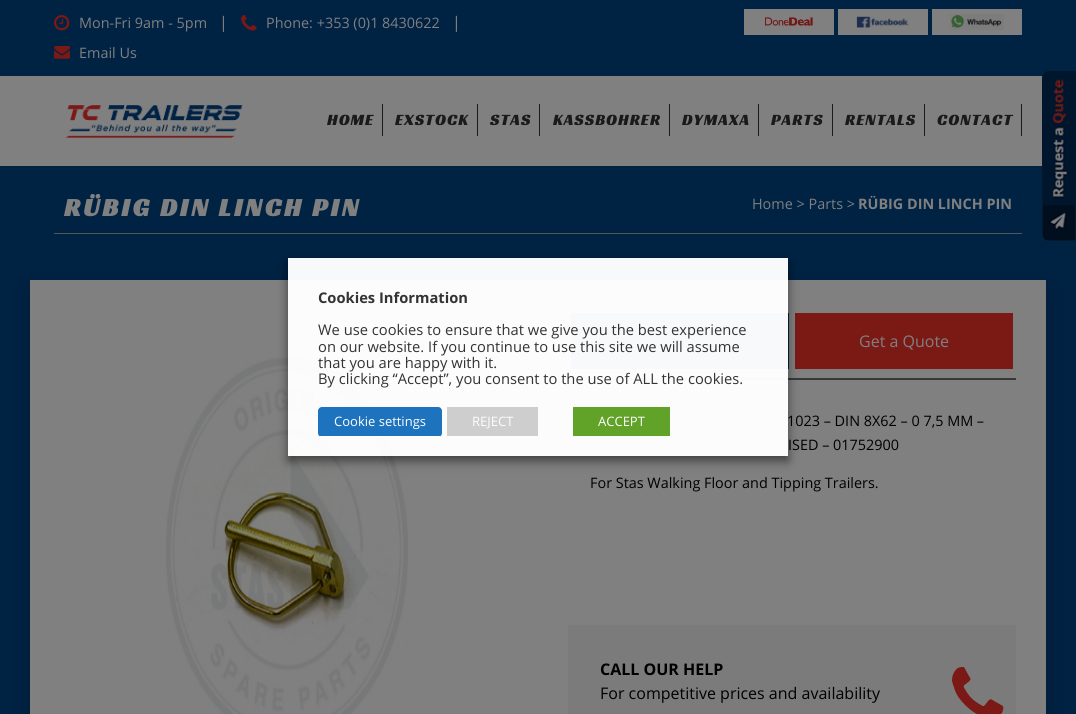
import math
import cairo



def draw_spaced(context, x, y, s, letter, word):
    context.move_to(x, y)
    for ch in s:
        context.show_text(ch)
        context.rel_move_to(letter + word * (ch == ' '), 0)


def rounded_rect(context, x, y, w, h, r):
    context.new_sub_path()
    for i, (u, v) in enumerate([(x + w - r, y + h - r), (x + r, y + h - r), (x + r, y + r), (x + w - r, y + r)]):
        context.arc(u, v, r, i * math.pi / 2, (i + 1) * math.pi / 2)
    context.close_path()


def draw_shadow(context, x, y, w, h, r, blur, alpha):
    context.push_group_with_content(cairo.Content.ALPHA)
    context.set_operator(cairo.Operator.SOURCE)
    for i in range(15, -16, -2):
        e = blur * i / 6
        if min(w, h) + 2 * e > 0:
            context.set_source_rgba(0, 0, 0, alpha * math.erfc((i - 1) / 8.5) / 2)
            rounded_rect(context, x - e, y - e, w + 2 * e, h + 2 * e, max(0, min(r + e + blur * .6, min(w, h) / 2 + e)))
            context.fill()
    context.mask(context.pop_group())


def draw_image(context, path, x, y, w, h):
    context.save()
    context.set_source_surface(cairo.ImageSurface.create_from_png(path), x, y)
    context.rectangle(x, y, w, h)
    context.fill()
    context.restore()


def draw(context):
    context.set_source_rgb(0, 34 / 255, 67 / 255)
    context.paint()
    draw_image(context, "images/1.png", 54, 15, 16, 16)
    draw_image(context, "images/2.png", 241, 15, 16, 16)
    draw_image(context, "images/3.png", 54, 46, 16, 13)
    context.set_source_rgb(128 / 255, 128 / 255, 128 / 255)
    context.rectangle(744, 9, 90, 26)
    context.fill()
    draw_image(context, "images/4.png", 765, 17, 48, 9)
    context.rectangle(838, 9, 90, 26)
    context.fill()
    draw_image(context, "images/5.png", 856, 16, 53, 12)
    context.rectangle(932, 9, 90, 26)
    context.fill()
    draw_image(context, "images/6.png", 950, 14, 54, 16)
    context.rectangle(0, 76, 1043, 90)
    context.fill()
    draw_image(context, "images/7.png", 65, 105, 178, 33)
    context.set_source_rgb(26 / 255, 26 / 255, 26 / 255)
    context.rectangle(382, 104, 1, 32)
    context.fill()
    context.rectangle(477, 104, 1, 32)
    context.fill()
    context.rectangle(539, 104, 1, 32)
    context.fill()
    context.rectangle(669, 104, 1, 32)
    context.fill()
    context.rectangle(758, 104, 1, 32)
    context.fill()
    context.rectangle(832, 104, 1, 32)
    context.fill()
    context.rectangle(924, 104, 1, 32)
    context.fill()
    context.rectangle(1021, 104, 1, 32)
    context.fill()
    context.set_source_rgb(86 / 255, 86 / 255, 86 / 255)
    context.rectangle(54, 233, 968, 1)
    context.fill()
    context.set_source_rgb(1 / 255, 23 / 255, 44 / 255)
    context.new_path()
    context.move_to(1050, 71)
    context.line_to(1076, 71)
    context.line_to(1076, 241)
    context.line_to(1050, 241)
    context.curve_to(1045.5, 241, 1042, 237.5, 1042, 233)
    context.line_to(1042, 79)
    context.curve_to(1042, 74.5, 1045.5, 71, 1050, 71)
    context.close_path()
    context.fill()
    draw_image(context, "images/8.png", 1042, 71, 34, 170)
    context.set_source_rgb(0, 0, 0)
    draw_shadow(context, 30, 290, 1016, 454, 0, 10, 0.2)
    context.set_source_rgb(128 / 255, 128 / 255, 128 / 255)
    context.rectangle(30, 280, 1016, 434)
    context.fill()
    draw_image(context, "images/9.png", 166, 357, 242, 357)
    context.set_source_rgb(56 / 255, 56 / 255, 56 / 255)
    context.rectangle(568, 378, 448, 2)
    context.fill()
    context.set_source_rgb(0, 34 / 255, 67 / 255)
    context.rectangle(571, 313, 218, 56)
    context.fill()
    context.set_source_rgb(123 / 255, 25 / 255, 21 / 255)
    context.rectangle(795, 313, 218, 56)
    context.fill()
    context.set_source_rgb(123 / 255, 123 / 255, 123 / 255)
    context.rectangle(568, 625, 448, 89)
    context.fill()
    draw_image(context, "images/10.png", 952, 667, 52, 47)
    context.save()
    context.set_fill_rule(cairo.FillRule.EVEN_ODD)
    context.new_path()
    context.move_to(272, 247)
    context.line_to(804, 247)
    context.line_to(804, 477)
    context.line_to(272, 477)
    context.close_path()
    context.move_to(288, 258)
    context.line_to(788, 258)
    context.line_to(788, 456)
    context.line_to(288, 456)
    context.close_path()
    context.clip()
    context.set_source_rgb(0, 0, 0)
    draw_shadow(context, 288, 263, 500, 198, 0, 5, 0.5)
    context.restore()
    context.set_source_rgba(1, 1, 1, 0.97)
    context.rectangle(288, 258, 500, 198)
    context.fill()
    context.set_source_rgb(30 / 255, 115 / 255, 190 / 255)
    rounded_rect(context, 318, 407, 124, 30, 4)
    context.fill()
    context.set_source_rgb(1, 252 / 255, 252 / 255)
    context.rectangle(320, 436, 120, 1)
    context.fill()
    context.set_source_rgb(206 / 255, 206 / 255, 206 / 255)
    context.rectangle(447, 407, 91, 29)
    context.fill()
    context.set_source_rgb(97 / 255, 162 / 255, 41 / 255)
    context.rectangle(573, 407, 97, 29)
    context.fill()
    context.select_font_face("Open Sans")
    context.set_font_size(14.4)
    context.set_source_rgb(128 / 255, 128 / 255, 128 / 255)
    context.move_to(79, 28)
    context.show_text("Mon-Fri 9am - 5pm")
    context.set_font_size(16)
    context.move_to(219, 28)
    context.show_text("|")
    context.set_font_size(14.4)
    context.move_to(266, 28)
    context.show_text("Phone: +353 (0)1 8430622")
    context.set_font_size(16)
    context.move_to(452, 28)
    context.show_text("|")
    context.set_font_size(14.4)
    context.move_to(79, 58)
    context.show_text("Email Us")
    context.select_font_face("Racing Sans One")
    context.set_font_size(16)
    context.set_source_rgb(26 / 255, 26 / 255, 26 / 255)
    draw_spaced(context, 327, 125, "HOME", 1, 0)
    draw_spaced(context, 395, 125, "EXSTOCK", 1, 0)
    draw_spaced(context, 490, 125, "STAS", 1, 0)
    draw_spaced(context, 553, 125, "KASSBOHRER", 1, 0)
    draw_spaced(context, 682, 125, "DYMAXA", 1, 0)
    draw_spaced(context, 771, 125, "PARTS", 1, 0)
    draw_spaced(context, 845, 125, "RENTALS", 1, 0)
    draw_spaced(context, 937, 125, "CONTACT", 1, 0)
    context.select_font_face("Racing Sans One", cairo.FontSlant.NORMAL, cairo.FontWeight.BOLD)
    context.set_font_size(25.6)
    context.set_source_rgb(128 / 255, 128 / 255, 128 / 255)
    draw_spaced(context, 64, 216, "RÜBIG DIN LINCH PIN", 3, 0)
    context.select_font_face("Open Sans")
    context.set_font_size(14.4)
    context.move_to(752, 209)
    context.show_text("Home > Parts >")
    context.select_font_face("Open Sans", cairo.FontSlant.NORMAL, cairo.FontWeight.BOLD)
    context.move_to(858, 209)
    context.show_text("RÜBIG DIN LINCH PIN")
    context.select_font_face("Open Sans")
    context.set_font_size(16)
    context.move_to(859, 347)
    context.show_text("Get a Quote")
    context.set_font_size(14.4)
    context.set_source_rgb(0, 0, 0)
    context.move_to(787, 426)
    context.show_text("1023 – DIN 8X62 – 0 7,5 MM –")
    context.move_to(788, 450)
    context.show_text("ISED – 01752900")
    context.move_to(590, 488)
    context.show_text("For Stas Walking Floor and Tipping Trailers.")
    context.select_font_face("Open Sans", cairo.FontSlant.NORMAL, cairo.FontWeight.BOLD)
    context.set_font_size(16)
    context.move_to(600, 675)
    context.show_text("CALL OUR HELP")
    context.select_font_face("Open Sans")
    context.move_to(600, 699)
    context.show_text("For competitive prices and availability")
    context.select_font_face("Open Sans", cairo.FontSlant.NORMAL, cairo.FontWeight.BOLD)
    context.set_font_size(14.7)
    context.set_source_rgb(51 / 255, 51 / 255, 51 / 255)
    context.move_to(318, 303)
    context.show_text("Cookies Information")
    context.select_font_face("Open Sans")
    context.move_to(318, 335)
    context.show_text("We use cookies to ensure that we give you the best experience")
    context.move_to(318, 352)
    context.show_text("on our website. If you continue to use this site we will assume")
    context.move_to(318, 368)
    context.show_text("that you are happy with it.")
    context.move_to(318, 384)
    context.show_text("By clicking “Accept”, you consent to the use of ALL the cookies.")
    context.set_font_size(13)
    context.set_source_rgb(1, 252 / 255, 252 / 255)
    context.move_to(334, 426)
    context.show_text("Cookie settings")
    context.move_to(472, 426)
    context.show_text("REJECT")
    context.move_to(598, 426)
    context.show_text("ACCEPT")


surface = cairo.ImageSurface(cairo.Format.RGB24, 1076, 714)
context = cairo.Context(surface)
options = cairo.FontOptions()
options.set_hint_metrics(cairo.HintMetrics.OFF)
options.set_hint_style(cairo.HintStyle.NONE)
context.set_font_options(options)
context.set_miter_limit(4)
draw(context)
surface.write_to_png("out.png")
